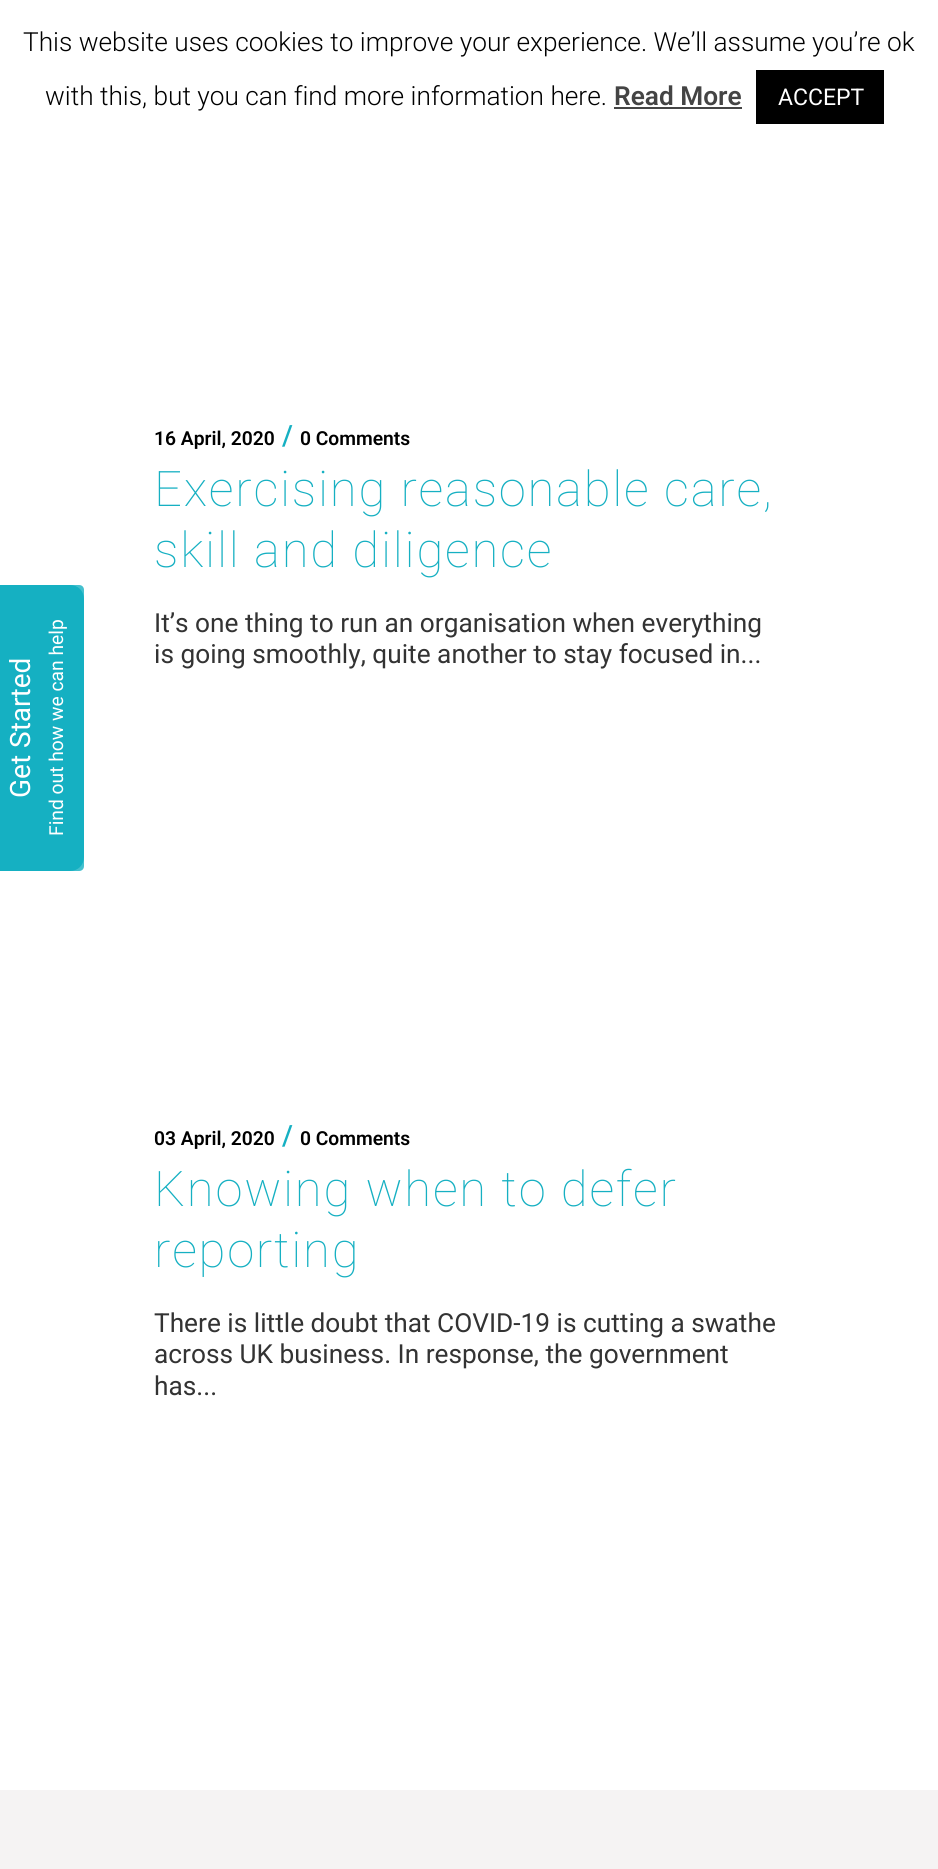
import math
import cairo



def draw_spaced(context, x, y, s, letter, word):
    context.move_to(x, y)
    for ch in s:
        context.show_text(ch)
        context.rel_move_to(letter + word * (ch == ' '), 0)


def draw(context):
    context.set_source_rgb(1, 1, 1)
    context.paint()
    context.set_source_rgb(68 / 255, 68 / 255, 68 / 255)
    context.rectangle(614, 107, 128, 2)
    context.fill()
    context.set_source_rgb(0, 0, 0)
    context.rectangle(756, 70, 128, 54)
    context.fill()
    context.set_source_rgb(22 / 255, 176 / 255, 194 / 255)
    context.new_path()
    context.move_to(-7, 871)
    context.line_to(-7, 585)
    context.line_to(70, 585)
    context.curve_to(78, 585, 84, 591, 84, 599)
    context.line_to(84, 857)
    context.curve_to(84, 865, 78, 871, 70, 871)
    context.close_path()
    context.fill()
    context.set_source_rgba(22 / 255, 176 / 255, 194 / 255, 0.8)
    context.new_path()
    context.move_to(-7, 866)
    context.line_to(-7, 590)
    context.curve_to(-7, 587, -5, 585, -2, 585)
    context.line_to(79, 585)
    context.curve_to(82, 585, 84, 587, 84, 590)
    context.line_to(84, 866)
    context.curve_to(84, 869, 82, 871, 79, 871)
    context.line_to(-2, 871)
    context.curve_to(-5, 871, -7, 869, -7, 866)
    context.close_path()
    context.fill()
    context.set_source_rgb(245 / 255, 243 / 255, 243 / 255)
    context.rectangle(0, 1790, 938, 79)
    context.fill()
    context.select_font_face("Roboto Light")
    context.set_font_size(26.25)
    context.set_source_rgb(0, 0, 0)
    context.move_to(23, 51)
    context.show_text("This website uses cookies to improve your experience. We’ll assume you’re ok")
    context.move_to(45, 105)
    context.show_text("with this, but you can find more information here.")
    context.select_font_face("Roboto SemiBold")
    context.set_source_rgb(68 / 255, 68 / 255, 68 / 255)
    context.move_to(614, 105)
    context.show_text("Read More")
    context.select_font_face("Roboto")
    context.set_font_size(23)
    context.set_source_rgb(1, 1, 1)
    context.move_to(778, 105)
    context.show_text("ACCEPT")
    context.set_font_size(28)
    context.save()
    context.translate(30, 798)
    context.rotate(-90 * math.pi / 180)
    context.move_to(0, 0)
    context.show_text("Get Started")
    context.restore()
    context.set_font_size(19.25)
    context.save()
    context.translate(63, 836)
    context.rotate(-90 * math.pi / 180)
    context.move_to(0, 0)
    context.show_text("Find out how we can help")
    context.restore()
    context.select_font_face("Roboto SemiBold")
    context.set_source_rgb(0, 0, 0)
    context.move_to(154, 445)
    context.show_text("16 April, 2020")
    context.select_font_face("Roboto Medium")
    context.set_font_size(28)
    context.set_source_rgb(22 / 255, 176 / 255, 194 / 255)
    context.move_to(282, 445)
    context.show_text("/")
    context.select_font_face("Roboto SemiBold")
    context.set_font_size(19.25)
    context.set_source_rgb(0, 0, 0)
    context.move_to(300, 445)
    context.show_text("0 Comments")
    context.select_font_face("Roboto Thin")
    context.set_font_size(49)
    context.set_source_rgb(22 / 255, 176 / 255, 194 / 255)
    draw_spaced(context, 154, 506, "Exercising reasonable care,", 1.75, 0)
    draw_spaced(context, 154, 567, "skill and diligence", 1.75, 0)
    context.select_font_face("Roboto")
    context.set_font_size(26.25)
    context.set_source_rgb(51 / 255, 51 / 255, 51 / 255)
    context.move_to(154, 632)
    context.show_text("It’s one thing to run an organisation when everything")
    context.move_to(154, 663)
    context.show_text("is going smoothly, quite another to stay focused in...")
    context.select_font_face("Roboto SemiBold")
    context.set_font_size(19.25)
    context.set_source_rgb(0, 0, 0)
    context.move_to(154, 1145)
    context.show_text("03 April, 2020")
    context.select_font_face("Roboto Medium")
    context.set_font_size(28)
    context.set_source_rgb(22 / 255, 176 / 255, 194 / 255)
    context.move_to(282, 1145)
    context.show_text("/")
    context.select_font_face("Roboto SemiBold")
    context.set_font_size(19.25)
    context.set_source_rgb(0, 0, 0)
    context.move_to(300, 1145)
    context.show_text("0 Comments")
    context.select_font_face("Roboto Thin")
    context.set_font_size(49)
    context.set_source_rgb(22 / 255, 176 / 255, 194 / 255)
    draw_spaced(context, 154, 1206, "Knowing when to defer", 1.75, 0)
    draw_spaced(context, 154, 1267, "reporting", 1.75, 0)
    context.select_font_face("Roboto")
    context.set_font_size(26.25)
    context.set_source_rgb(51 / 255, 51 / 255, 51 / 255)
    context.move_to(154, 1332)
    context.show_text("There is little doubt that COVID-19 is cutting a swathe")
    context.move_to(154, 1363)
    context.show_text("across UK business. In response, the government")
    context.move_to(154, 1395)
    context.show_text("has...")


surface = cairo.ImageSurface(cairo.Format.RGB24, 938, 1869)
context = cairo.Context(surface)
options = cairo.FontOptions()
options.set_hint_metrics(cairo.HintMetrics.OFF)
options.set_hint_style(cairo.HintStyle.NONE)
context.set_font_options(options)
context.set_miter_limit(4)
draw(context)
surface.write_to_png("out.png")
